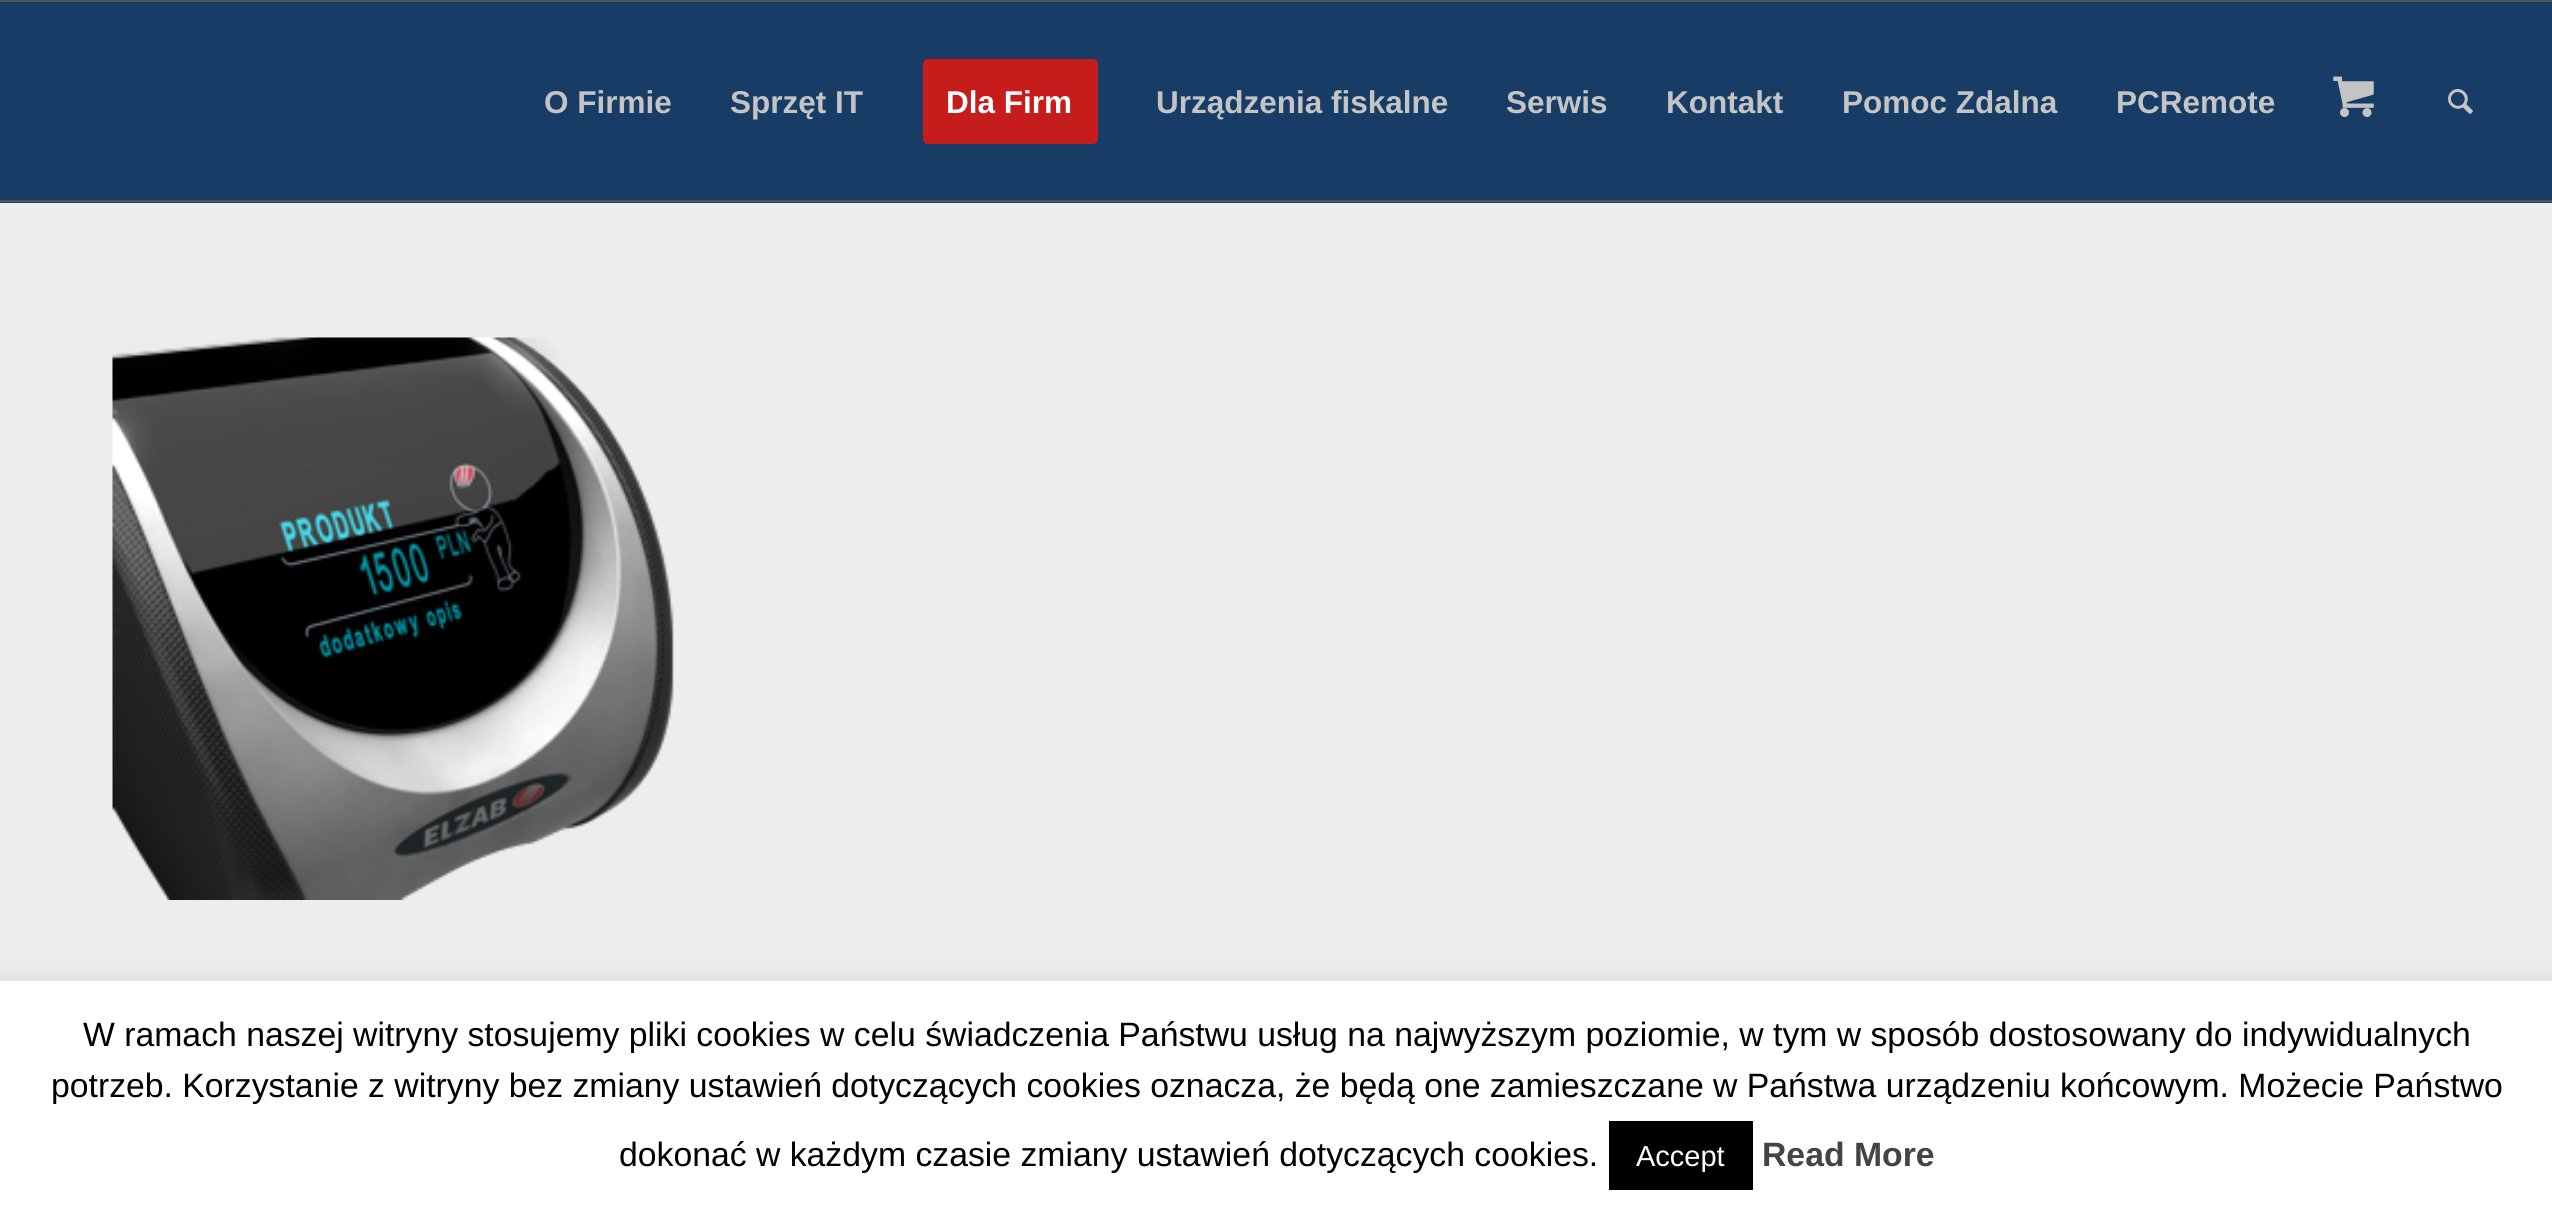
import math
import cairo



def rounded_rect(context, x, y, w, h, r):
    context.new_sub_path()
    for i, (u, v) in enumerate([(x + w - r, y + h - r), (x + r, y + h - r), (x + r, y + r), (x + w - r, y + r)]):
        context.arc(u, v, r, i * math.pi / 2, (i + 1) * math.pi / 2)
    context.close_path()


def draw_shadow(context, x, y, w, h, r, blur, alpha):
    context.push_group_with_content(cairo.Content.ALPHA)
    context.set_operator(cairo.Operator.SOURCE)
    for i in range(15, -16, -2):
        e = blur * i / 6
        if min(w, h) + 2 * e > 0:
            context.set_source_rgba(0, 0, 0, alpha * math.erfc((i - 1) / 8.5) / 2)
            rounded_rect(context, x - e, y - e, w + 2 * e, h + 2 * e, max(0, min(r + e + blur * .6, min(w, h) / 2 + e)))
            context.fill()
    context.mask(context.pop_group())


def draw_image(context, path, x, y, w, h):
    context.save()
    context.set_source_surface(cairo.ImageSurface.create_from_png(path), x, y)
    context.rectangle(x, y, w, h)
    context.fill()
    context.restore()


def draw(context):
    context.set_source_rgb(23 / 255, 60 / 255, 102 / 255)
    context.paint()
    context.set_source_rgb(84 / 255, 84 / 255, 84 / 255)
    context.rectangle(0, 0, 2552, 2)
    context.fill()
    context.rectangle(0, 200, 2552, 2)
    context.fill()
    context.set_source_rgb(26 / 255, 61 / 255, 101 / 255)
    context.rectangle(0, 198, 2552, 2)
    context.fill()
    context.set_source_rgb(23 / 255, 60 / 255, 102 / 255)
    context.rectangle(515, 198, 378, 2)
    context.fill()
    context.set_source_rgb(199 / 255, 28 / 255, 28 / 255)
    rounded_rect(context, 925.5, 61.5, 170, 80, 2.5)
    context.fill_preserve()
    context.set_line_width(5)
    context.stroke()
    context.set_source_rgb(23 / 255, 60 / 255, 102 / 255)
    context.rectangle(1127, 198, 1375, 2)
    context.fill()
    draw_image(context, "images/1.png", 2333, 76, 41, 41)
    draw_image(context, "images/2.png", 2448, 89, 25, 25)
    context.set_source_rgb(237 / 255, 237 / 255, 237 / 255)
    context.rectangle(0, 203, 2552, 778)
    context.fill()
    context.set_source_rgb(34 / 255, 69 / 255, 109 / 255)
    context.rectangle(0, 202, 2552, 1)
    context.fill()
    draw_image(context, "images/3.png", 112, 337, 562, 563)
    context.set_source_rgb(172 / 255, 171 / 255, 171 / 255)
    draw_shadow(context, 0, 979, 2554, 236, 0, 11, 0.3)
    context.set_source_rgb(1, 1, 1)
    context.rectangle(0, 981, 2552, 236)
    context.fill()
    context.set_source_rgb(0, 0, 0)
    context.rectangle(1609, 1121, 144, 69)
    context.fill()
    context.select_font_face("Liberation Sans", cairo.FontSlant.NORMAL, cairo.FontWeight.BOLD)
    context.set_font_size(31.5)
    context.set_source_rgb(196 / 255, 196 / 255, 196 / 255)
    context.move_to(544, 113)
    context.show_text("O Firmie")
    context.move_to(730, 113)
    context.show_text("Sprzęt IT")
    context.set_source_rgb(1, 1, 1)
    context.move_to(946, 113)
    context.show_text("Dla Firm")
    context.set_source_rgb(196 / 255, 196 / 255, 196 / 255)
    context.move_to(1156, 113)
    context.show_text("Urządzenia fiskalne")
    context.move_to(1506, 113)
    context.show_text("Serwis")
    context.move_to(1666, 113)
    context.show_text("Kontakt")
    context.move_to(1842, 113)
    context.show_text("Pomoc Zdalna")
    context.move_to(2116, 113)
    context.show_text("PCRemote")
    context.select_font_face("Liberation Sans")
    context.set_font_size(33.75)
    context.set_source_rgb(0, 0, 0)
    context.move_to(83, 1046)
    context.show_text("W ramach naszej witryny stosujemy pliki cookies w celu świadczenia Państwu usług na najwyższym poziomie, w tym w sposób dostosowany do indywidualnych")
    context.move_to(51, 1097)
    context.show_text("potrzeb. Korzystanie z witryny bez zmiany ustawień dotyczących cookies oznacza, że będą one zamieszczane w Państwa urządzeniu końcowym. Możecie Państwo")
    context.move_to(619, 1166)
    context.show_text("dokonać w każdym czasie zmiany ustawień dotyczących cookies.")
    context.set_font_size(29)
    context.set_source_rgb(1, 1, 1)
    context.move_to(1636, 1166)
    context.show_text("Accept")
    context.select_font_face("Liberation Sans", cairo.FontSlant.NORMAL, cairo.FontWeight.BOLD)
    context.set_font_size(33.75)
    context.set_source_rgb(68 / 255, 68 / 255, 68 / 255)
    context.move_to(1762, 1166)
    context.show_text("Read More")


surface = cairo.ImageSurface(cairo.Format.RGB24, 2552, 1217)
context = cairo.Context(surface)
options = cairo.FontOptions()
options.set_hint_metrics(cairo.HintMetrics.OFF)
options.set_hint_style(cairo.HintStyle.NONE)
context.set_font_options(options)
context.set_miter_limit(4)
draw(context)
surface.write_to_png("out.png")
